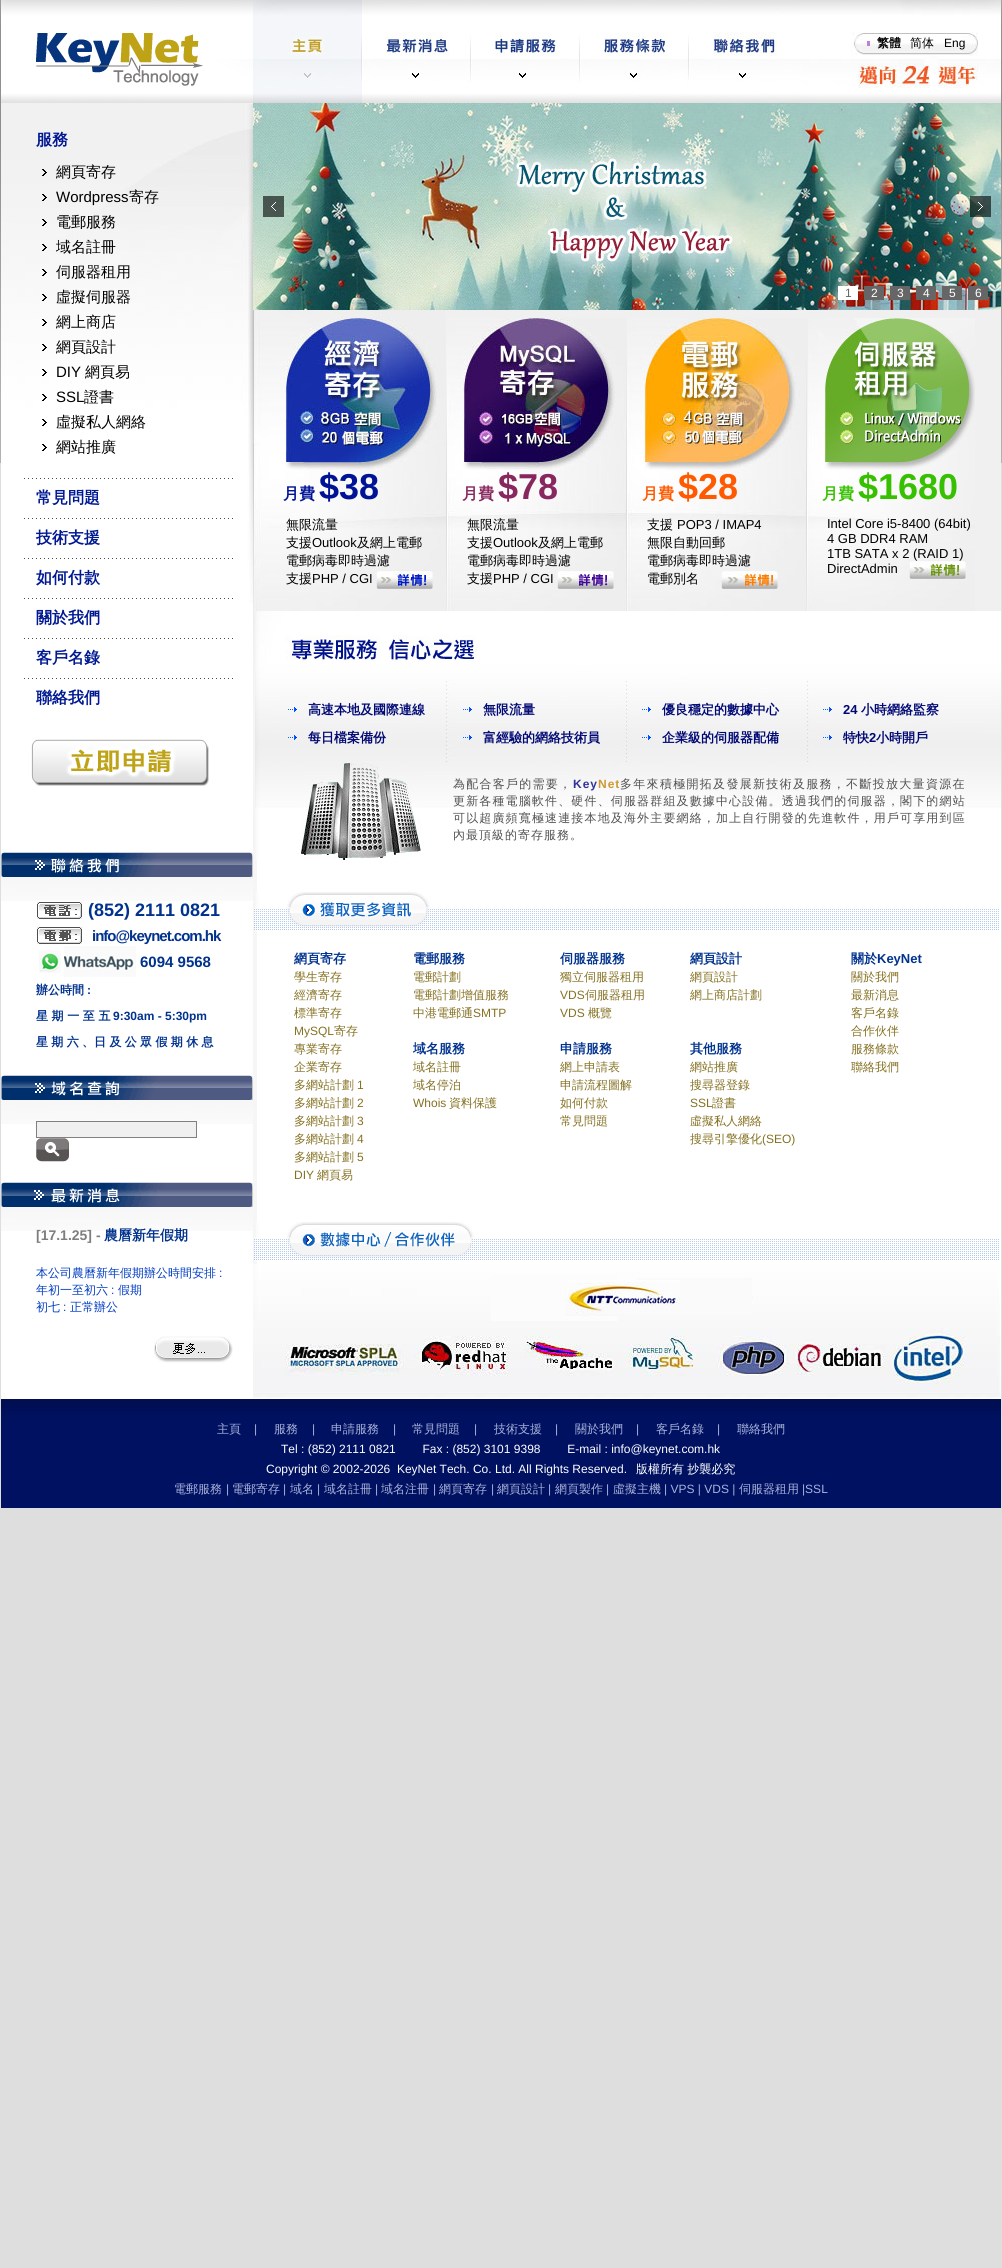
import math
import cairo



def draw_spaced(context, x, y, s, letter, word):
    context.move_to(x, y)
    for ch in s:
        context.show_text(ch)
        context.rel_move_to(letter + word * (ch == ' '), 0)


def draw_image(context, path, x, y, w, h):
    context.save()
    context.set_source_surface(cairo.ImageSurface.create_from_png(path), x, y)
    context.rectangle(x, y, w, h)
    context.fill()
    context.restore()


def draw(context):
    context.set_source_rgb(222 / 255, 222 / 255, 222 / 255)
    context.paint()
    draw_image(context, "images/1.png", 0, 0, 1002, 463)
    draw_image(context, "images/2.png", 1, 0, 252, 103)
    draw_image(context, "images/3.png", 253, 0, 109, 103)
    draw_image(context, "images/4.png", 362, 0, 109, 103)
    draw_image(context, "images/5.png", 471, 0, 109, 103)
    draw_image(context, "images/6.png", 580, 0, 109, 103)
    draw_image(context, "images/7.png", 689, 0, 113, 103)
    draw_image(context, "images/8.png", 802, 0, 199, 103)
    context.set_source_rgb(189 / 255, 130 / 255, 214 / 255)
    context.rectangle(867, 41, 3, 5)
    context.fill()
    context.set_source_rgb(1, 1, 1)
    context.rectangle(1, 603, 252, 796)
    context.fill()
    draw_image(context, "images/9.png", 1, 103, 252, 500)
    draw_image(context, "images/10.png", 42, 169, 5, 7)
    draw_image(context, "images/11.png", 42, 194, 5, 7)
    draw_image(context, "images/12.png", 42, 219, 5, 7)
    draw_image(context, "images/13.png", 42, 244, 5, 7)
    draw_image(context, "images/14.png", 42, 269, 5, 7)
    draw_image(context, "images/15.png", 42, 294, 5, 7)
    draw_image(context, "images/16.png", 42, 319, 5, 7)
    draw_image(context, "images/17.png", 42, 344, 5, 7)
    draw_image(context, "images/18.png", 42, 369, 5, 7)
    draw_image(context, "images/19.png", 42, 394, 5, 7)
    draw_image(context, "images/20.png", 42, 419, 5, 7)
    draw_image(context, "images/20.png", 42, 444, 5, 7)
    draw_image(context, "images/21.png", 24, 478, 209, 1)
    draw_image(context, "images/21.png", 24, 518, 209, 1)
    draw_image(context, "images/21.png", 24, 558, 209, 1)
    draw_image(context, "images/21.png", 24, 598, 209, 1)
    draw_image(context, "images/21.png", 24, 638, 209, 1)
    draw_image(context, "images/21.png", 24, 678, 209, 1)
    draw_image(context, "images/22.png", 31, 739, 178, 47)
    draw_image(context, "images/23.png", 1, 877, 252, 24)
    draw_image(context, "images/24.png", 1, 852, 252, 25)
    draw_image(context, "images/25.png", 37, 902, 45, 17)
    draw_image(context, "images/26.png", 37, 927, 45, 17)
    draw_image(context, "images/27.png", 39, 946, 97, 31)
    draw_image(context, "images/23.png", 1, 1100, 252, 24)
    draw_image(context, "images/28.png", 1, 1075, 252, 25)
    context.set_source_rgb(240 / 255, 240 / 255, 240 / 255)
    context.rectangle(36.5, 1121.5, 160, 16)
    context.fill_preserve()
    context.set_source_rgb(128 / 255, 128 / 255, 128 / 255)
    context.set_line_width(1)
    context.stroke()
    draw_image(context, "images/29.png", 36, 1138, 33, 24)
    draw_image(context, "images/23.png", 1, 1207, 252, 24)
    draw_image(context, "images/30.png", 1, 1182, 252, 25)
    draw_image(context, "images/31.png", 154, 1336, 79, 27)
    context.set_source_rgb(1, 1, 1)
    context.rectangle(257, 860, 744, 404)
    context.fill()
    context.set_source_rgb(246 / 255, 246 / 255, 246 / 255)
    context.rectangle(253, 860, 4, 404)
    context.fill()
    draw_image(context, "images/32.png", 253, 103, 748, 207)
    draw_image(context, "images/33.png", 263, 196, 21, 21)
    draw_image(context, "images/34.png", 970, 196, 21, 21)
    context.set_source_rgb(1, 1, 1)
    context.rectangle(838, 286, 20, 14)
    context.fill()
    context.set_source_rgb(102 / 255, 102 / 255, 102 / 255)
    context.rectangle(864, 286, 20, 14)
    context.fill()
    context.rectangle(890, 286, 20, 14)
    context.fill()
    context.rectangle(916, 286, 20, 14)
    context.fill()
    context.rectangle(942, 286, 20, 14)
    context.fill()
    context.rectangle(968, 286, 20, 14)
    context.fill()
    context.set_source_rgb(239 / 255, 240 / 255, 239 / 255)
    context.rectangle(447, 310, 554, 301)
    context.fill()
    draw_image(context, "images/35.png", 253, 310, 194, 301)
    draw_image(context, "images/36.png", 376, 571, 57, 18)
    draw_image(context, "images/37.png", 447, 318, 180, 293)
    draw_image(context, "images/38.png", 557, 571, 57, 18)
    draw_image(context, "images/39.png", 627, 318, 180, 293)
    draw_image(context, "images/40.png", 721, 571, 57, 18)
    draw_image(context, "images/41.png", 807, 318, 168, 293)
    draw_image(context, "images/42.png", 909, 561, 57, 18)
    draw_image(context, "images/43.png", 253, 611, 748, 249)
    draw_image(context, "images/44.png", 288, 707, 9, 5)
    draw_image(context, "images/45.png", 288, 735, 9, 5)
    draw_image(context, "images/44.png", 463, 707, 9, 5)
    draw_image(context, "images/46.png", 463, 735, 9, 5)
    draw_image(context, "images/44.png", 642, 707, 9, 5)
    draw_image(context, "images/47.png", 642, 735, 9, 5)
    draw_image(context, "images/44.png", 823, 707, 9, 5)
    draw_image(context, "images/48.png", 823, 735, 9, 5)
    draw_image(context, "images/49.png", 254, 892, 745, 39)
    draw_image(context, "images/50.png", 254, 1222, 745, 39)
    draw_image(context, "images/51.png", 253, 1264, 748, 135)
    context.set_source_rgb(0, 17 / 255, 98 / 255)
    context.rectangle(1, 1417, 1000, 91)
    context.fill()
    draw_image(context, "images/52.png", 1, 1399, 1000, 18)
    context.select_font_face("WenQuanYi Zen Hei", cairo.FontSlant.NORMAL, cairo.FontWeight.BOLD)
    context.set_font_size(12)
    context.set_source_rgb(0, 0, 0)
    context.move_to(877, 47)
    context.show_text("繁體")
    context.select_font_face("WenQuanYi Zen Hei Medium")
    context.move_to(910, 47)
    context.show_text("简体")
    context.select_font_face("Liberation Sans")
    context.move_to(944, 47)
    context.show_text("Eng")
    context.select_font_face("WenQuanYi Zen Hei", cairo.FontSlant.NORMAL, cairo.FontWeight.BOLD)
    context.set_font_size(16)
    context.set_source_rgb(0, 24 / 255, 146 / 255)
    context.move_to(36, 145)
    context.show_text("服務")
    context.select_font_face("WenQuanYi Zen Hei Medium")
    context.set_font_size(15)
    context.set_source_rgb(0, 0, 0)
    context.move_to(56, 177)
    context.show_text("網頁寄存")
    context.select_font_face("Liberation Sans")
    context.move_to(56, 202)
    context.show_text("Wordpress")
    context.select_font_face("WenQuanYi Zen Hei Medium")
    context.move_to(129, 202)
    context.show_text("寄存")
    context.move_to(56, 227)
    context.show_text("電郵服務")
    context.move_to(56, 252)
    context.show_text("域名註冊")
    context.move_to(56, 277)
    context.show_text("伺服器租用")
    context.move_to(56, 302)
    context.show_text("虛擬伺服器")
    context.move_to(56, 327)
    context.show_text("網上商店")
    context.move_to(56, 352)
    context.show_text("網頁設計")
    context.select_font_face("Liberation Sans")
    context.move_to(56, 377)
    context.show_text("DIY")
    context.select_font_face("WenQuanYi Zen Hei Medium")
    context.move_to(85, 377)
    context.show_text("網頁易")
    context.select_font_face("Liberation Sans")
    context.move_to(56, 402)
    context.show_text("SSL")
    context.select_font_face("WenQuanYi Zen Hei Medium")
    context.move_to(84, 402)
    context.show_text("證書")
    context.move_to(56, 427)
    context.show_text("虛擬私人網絡")
    context.move_to(56, 452)
    context.show_text("網站推廣")
    context.select_font_face("WenQuanYi Zen Hei", cairo.FontSlant.NORMAL, cairo.FontWeight.BOLD)
    context.set_font_size(16)
    context.set_source_rgb(0, 24 / 255, 146 / 255)
    context.move_to(36, 503)
    context.show_text("常見問題")
    context.move_to(36, 543)
    context.show_text("技術支援")
    context.move_to(36, 583)
    context.show_text("如何付款")
    context.move_to(36, 623)
    context.show_text("關於我們")
    context.move_to(36, 663)
    context.show_text("客戶名錄")
    context.move_to(36, 703)
    context.show_text("聯絡我們")
    context.select_font_face("Liberation Sans", cairo.FontSlant.NORMAL, cairo.FontWeight.BOLD)
    context.set_font_size(18)
    context.set_source_rgb(0, 50 / 255, 142 / 255)
    context.move_to(88, 916)
    context.show_text("(852) 2111 0821")
    context.set_font_size(15)
    draw_spaced(context, 92, 941, "info@keynet.com.hk", -1, 0)
    context.move_to(140, 967)
    context.show_text("6094 9568")
    context.select_font_face("WenQuanYi Zen Hei", cairo.FontSlant.NORMAL, cairo.FontWeight.BOLD)
    context.set_font_size(12)
    context.move_to(36, 994)
    context.show_text("辦公時間")
    context.select_font_face("Liberation Sans", cairo.FontSlant.NORMAL, cairo.FontWeight.BOLD)
    context.move_to(87, 994)
    context.show_text(":")
    context.select_font_face("WenQuanYi Zen Hei", cairo.FontSlant.NORMAL, cairo.FontWeight.BOLD)
    context.move_to(36, 1020)
    context.show_text("星 期 一 至 五")
    context.select_font_face("Liberation Sans", cairo.FontSlant.NORMAL, cairo.FontWeight.BOLD)
    context.move_to(113, 1020)
    context.show_text("9:30am - 5:30pm")
    context.select_font_face("WenQuanYi Zen Hei", cairo.FontSlant.NORMAL, cairo.FontWeight.BOLD)
    draw_spaced(context, 36, 1046, "星 期 六 、日 及 公 眾 假 期 休 息", 0, -0.25)
    context.select_font_face("Liberation Sans", cairo.FontSlant.NORMAL, cairo.FontWeight.BOLD)
    context.set_font_size(14)
    context.set_source_rgb(126 / 255, 126 / 255, 126 / 255)
    context.move_to(36, 1240)
    context.show_text("[17.1.25] -")
    context.select_font_face("WenQuanYi Zen Hei", cairo.FontSlant.NORMAL, cairo.FontWeight.BOLD)
    context.set_source_rgb(0, 50 / 255, 142 / 255)
    context.move_to(104, 1240)
    context.show_text("農曆新年假期")
    context.select_font_face("WenQuanYi Zen Hei Medium")
    context.set_font_size(12)
    context.set_source_rgb(0, 60 / 255, 195 / 255)
    context.move_to(36, 1277)
    context.show_text("本公司農曆新年假期辦公時間安排")
    context.select_font_face("Liberation Sans")
    context.move_to(219, 1277)
    context.show_text(":")
    context.select_font_face("WenQuanYi Zen Hei Medium")
    context.move_to(36, 1294)
    context.show_text("年初一至初六")
    context.select_font_face("Liberation Sans")
    context.move_to(111, 1294)
    context.show_text(":")
    context.select_font_face("WenQuanYi Zen Hei Medium")
    context.move_to(118, 1294)
    context.show_text("假期")
    context.move_to(36, 1311)
    context.show_text("初七")
    context.select_font_face("Liberation Sans")
    context.move_to(63, 1311)
    context.show_text(":")
    context.select_font_face("WenQuanYi Zen Hei Medium")
    context.move_to(70, 1311)
    context.show_text("正常辦公")
    context.select_font_face("Liberation Sans")
    context.set_source_rgb(102 / 255, 102 / 255, 102 / 255)
    context.move_to(845, 297)
    context.show_text("1")
    context.set_source_rgb(1, 1, 1)
    context.move_to(871, 297)
    context.show_text("2")
    context.move_to(897, 297)
    context.show_text("3")
    context.move_to(923, 297)
    context.show_text("4")
    context.move_to(949, 297)
    context.show_text("5")
    context.move_to(975, 297)
    context.show_text("6")
    context.select_font_face("WenQuanYi Zen Hei", cairo.FontSlant.NORMAL, cairo.FontWeight.BOLD)
    context.set_font_size(16)
    context.set_source_rgb(0, 18 / 255, 150 / 255)
    context.move_to(283, 499)
    context.show_text("月費")
    context.select_font_face("Liberation Sans", cairo.FontSlant.NORMAL, cairo.FontWeight.BOLD)
    context.set_font_size(36)
    context.move_to(319, 499)
    context.show_text("$38")
    context.select_font_face("WenQuanYi Zen Hei Medium")
    context.set_font_size(13)
    context.set_source_rgb(0, 0, 0)
    context.move_to(286, 529)
    context.show_text("無限流量")
    context.move_to(286, 547)
    context.show_text("支援")
    context.select_font_face("Liberation Sans")
    context.move_to(312, 547)
    context.show_text("Outlook")
    context.select_font_face("WenQuanYi Zen Hei Medium")
    context.move_to(357, 547)
    context.show_text("及網上電郵")
    context.move_to(286, 565)
    context.show_text("電郵病毒即時過濾")
    context.move_to(286, 583)
    context.show_text("支援")
    context.select_font_face("Liberation Sans")
    context.move_to(312, 583)
    context.show_text("PHP / CGI")
    context.select_font_face("WenQuanYi Zen Hei", cairo.FontSlant.NORMAL, cairo.FontWeight.BOLD)
    context.set_font_size(16)
    context.set_source_rgb(136 / 255, 39 / 255, 93 / 255)
    context.move_to(462, 499)
    context.show_text("月費")
    context.select_font_face("Liberation Sans", cairo.FontSlant.NORMAL, cairo.FontWeight.BOLD)
    context.set_font_size(36)
    context.move_to(498, 499)
    context.show_text("$78")
    context.select_font_face("WenQuanYi Zen Hei Medium")
    context.set_font_size(13)
    context.set_source_rgb(0, 0, 0)
    context.move_to(467, 529)
    context.show_text("無限流量")
    context.move_to(467, 547)
    context.show_text("支援")
    context.select_font_face("Liberation Sans")
    context.move_to(493, 547)
    context.show_text("Outlook")
    context.select_font_face("WenQuanYi Zen Hei Medium")
    context.move_to(538, 547)
    context.show_text("及網上電郵")
    context.move_to(467, 565)
    context.show_text("電郵病毒即時過濾")
    context.move_to(467, 583)
    context.show_text("支援")
    context.select_font_face("Liberation Sans")
    context.move_to(493, 583)
    context.show_text("PHP / CGI")
    context.select_font_face("WenQuanYi Zen Hei", cairo.FontSlant.NORMAL, cairo.FontWeight.BOLD)
    context.set_font_size(16)
    context.set_source_rgb(1, 90 / 255, 0)
    context.move_to(642, 499)
    context.show_text("月費")
    context.select_font_face("Liberation Sans", cairo.FontSlant.NORMAL, cairo.FontWeight.BOLD)
    context.set_font_size(36)
    context.move_to(678, 499)
    context.show_text("$28")
    context.select_font_face("WenQuanYi Zen Hei Medium")
    context.set_font_size(13)
    context.set_source_rgb(0, 0, 0)
    context.move_to(647, 529)
    context.show_text("支援")
    context.select_font_face("Liberation Sans")
    context.move_to(677, 529)
    context.show_text("POP3 / IMAP4")
    context.select_font_face("WenQuanYi Zen Hei Medium")
    context.move_to(647, 547)
    context.show_text("無限自動回郵")
    context.move_to(647, 565)
    context.show_text("電郵病毒即時過濾")
    context.move_to(647, 583)
    context.show_text("電郵別名")
    context.select_font_face("WenQuanYi Zen Hei", cairo.FontSlant.NORMAL, cairo.FontWeight.BOLD)
    context.set_font_size(16)
    context.set_source_rgb(54 / 255, 192 / 255, 0)
    context.move_to(822, 499)
    context.show_text("月費")
    context.select_font_face("Liberation Sans", cairo.FontSlant.NORMAL, cairo.FontWeight.BOLD)
    context.set_font_size(36)
    context.move_to(858, 499)
    context.show_text("$1680")
    context.select_font_face("Liberation Sans")
    context.set_font_size(13)
    context.set_source_rgb(0, 0, 0)
    context.move_to(827, 528)
    context.show_text("Intel Core i5-8400 (64bit)")
    context.move_to(827, 543)
    context.show_text("4 GB DDR4 RAM")
    context.move_to(827, 558)
    context.show_text("1TB SATA x 2 (RAID 1)")
    context.move_to(827, 573)
    context.show_text("DirectAdmin")
    context.select_font_face("WenQuanYi Zen Hei", cairo.FontSlant.NORMAL, cairo.FontWeight.BOLD)
    context.set_source_rgb(0, 8 / 255, 116 / 255)
    context.move_to(308, 714)
    context.show_text("高速本地及國際連線")
    context.move_to(308, 742)
    context.show_text("每日檔案備份")
    context.move_to(483, 714)
    context.show_text("無限流量")
    context.move_to(483, 742)
    context.show_text("富經驗的網絡技術員")
    context.move_to(662, 714)
    context.show_text("優良穩定的數據中心")
    context.move_to(662, 742)
    context.show_text("企業級的伺服器配備")
    context.select_font_face("Liberation Sans", cairo.FontSlant.NORMAL, cairo.FontWeight.BOLD)
    context.move_to(843, 714)
    context.show_text("24")
    context.select_font_face("WenQuanYi Zen Hei", cairo.FontSlant.NORMAL, cairo.FontWeight.BOLD)
    context.move_to(861, 714)
    context.show_text("小時網絡監察")
    context.move_to(843, 742)
    context.show_text("特快")
    context.select_font_face("Liberation Sans", cairo.FontSlant.NORMAL, cairo.FontWeight.BOLD)
    context.move_to(869, 742)
    context.show_text("2")
    context.select_font_face("WenQuanYi Zen Hei", cairo.FontSlant.NORMAL, cairo.FontWeight.BOLD)
    context.move_to(876, 742)
    context.show_text("小時開戶")
    context.select_font_face("WenQuanYi Zen Hei Medium")
    context.set_font_size(12)
    context.set_source_rgb(81 / 255, 81 / 255, 81 / 255)
    draw_spaced(context, 453, 788, "為配合客戶的需要，", 1.25, 0)
    context.select_font_face("Liberation Sans", cairo.FontSlant.NORMAL, cairo.FontWeight.BOLD)
    context.set_source_rgb(51 / 255, 51 / 255, 153 / 255)
    draw_spaced(context, 573, 788, "Key", 1, 0)
    context.set_source_rgb(204 / 255, 153 / 255, 51 / 255)
    draw_spaced(context, 598, 788, "Net", 1, 0)
    context.select_font_face("WenQuanYi Zen Hei Medium")
    context.set_source_rgb(81 / 255, 81 / 255, 81 / 255)
    draw_spaced(context, 620, 788, "多年來積極開拓及發展新技術及服務，不斷投放大量資源在", 1.3, 0)
    draw_spaced(context, 453, 805, "更新各種電腦軟件、硬件、伺服器群組及數據中心設備。透過我們的伺服器，閣下的網站", 1.15, 0)
    draw_spaced(context, 453, 822, "可以超廣頻寬極速連接本地及海外主要網絡，加上自行開發的先進軟件，用戶可享用到區", 1.15, 0)
    draw_spaced(context, 453, 839, "內最頂級的寄存服務。", 1, 0)
    context.select_font_face("WenQuanYi Zen Hei", cairo.FontSlant.NORMAL, cairo.FontWeight.BOLD)
    context.set_font_size(13)
    context.set_source_rgb(0, 50 / 255, 142 / 255)
    context.move_to(294, 963)
    context.show_text("網頁寄存")
    context.select_font_face("WenQuanYi Zen Hei Medium")
    context.set_font_size(12)
    context.set_source_rgb(133 / 255, 113 / 255, 34 / 255)
    context.move_to(294, 981)
    context.show_text("學生寄存")
    context.move_to(294, 999)
    context.show_text("經濟寄存")
    context.move_to(294, 1017)
    context.show_text("標準寄存")
    context.select_font_face("Liberation Sans")
    context.move_to(294, 1035)
    context.show_text("MySQL")
    context.select_font_face("WenQuanYi Zen Hei Medium")
    context.move_to(334, 1035)
    context.show_text("寄存")
    context.move_to(294, 1053)
    context.show_text("專業寄存")
    context.move_to(294, 1071)
    context.show_text("企業寄存")
    context.move_to(294, 1089)
    context.show_text("多網站計劃")
    context.select_font_face("Liberation Sans")
    context.move_to(357, 1089)
    context.show_text("1")
    context.select_font_face("WenQuanYi Zen Hei Medium")
    context.move_to(294, 1107)
    context.show_text("多網站計劃")
    context.select_font_face("Liberation Sans")
    context.move_to(357, 1107)
    context.show_text("2")
    context.select_font_face("WenQuanYi Zen Hei Medium")
    context.move_to(294, 1125)
    context.show_text("多網站計劃")
    context.select_font_face("Liberation Sans")
    context.move_to(357, 1125)
    context.show_text("3")
    context.select_font_face("WenQuanYi Zen Hei Medium")
    context.move_to(294, 1143)
    context.show_text("多網站計劃")
    context.select_font_face("Liberation Sans")
    context.move_to(357, 1143)
    context.show_text("4")
    context.select_font_face("WenQuanYi Zen Hei Medium")
    context.move_to(294, 1161)
    context.show_text("多網站計劃")
    context.select_font_face("Liberation Sans")
    context.move_to(357, 1161)
    context.show_text("5")
    context.move_to(294, 1179)
    context.show_text("DIY")
    context.select_font_face("WenQuanYi Zen Hei Medium")
    context.move_to(317, 1179)
    context.show_text("網頁易")
    context.select_font_face("WenQuanYi Zen Hei", cairo.FontSlant.NORMAL, cairo.FontWeight.BOLD)
    context.set_font_size(13)
    context.set_source_rgb(0, 50 / 255, 142 / 255)
    context.move_to(413, 963)
    context.show_text("電郵服務")
    context.select_font_face("WenQuanYi Zen Hei Medium")
    context.set_font_size(12)
    context.set_source_rgb(133 / 255, 113 / 255, 34 / 255)
    context.move_to(413, 981)
    context.show_text("電郵計劃")
    context.move_to(413, 999)
    context.show_text("電郵計劃增值服務")
    context.move_to(413, 1017)
    context.show_text("中港電郵通")
    context.select_font_face("Liberation Sans")
    context.move_to(473, 1017)
    context.show_text("SMTP")
    context.select_font_face("WenQuanYi Zen Hei", cairo.FontSlant.NORMAL, cairo.FontWeight.BOLD)
    context.set_font_size(13)
    context.set_source_rgb(0, 50 / 255, 142 / 255)
    context.move_to(560, 963)
    context.show_text("伺服器服務")
    context.select_font_face("WenQuanYi Zen Hei Medium")
    context.set_font_size(12)
    context.set_source_rgb(133 / 255, 113 / 255, 34 / 255)
    context.move_to(560, 981)
    context.show_text("獨立伺服器租用")
    context.select_font_face("Liberation Sans")
    context.move_to(560, 999)
    context.show_text("VDS")
    context.select_font_face("WenQuanYi Zen Hei Medium")
    context.move_to(585, 999)
    context.show_text("伺服器租用")
    context.select_font_face("Liberation Sans")
    context.move_to(560, 1017)
    context.show_text("VDS")
    context.select_font_face("WenQuanYi Zen Hei Medium")
    context.move_to(588, 1017)
    context.show_text("概覽")
    context.select_font_face("WenQuanYi Zen Hei", cairo.FontSlant.NORMAL, cairo.FontWeight.BOLD)
    context.set_font_size(13)
    context.set_source_rgb(0, 50 / 255, 142 / 255)
    context.move_to(690, 963)
    context.show_text("網頁設計")
    context.select_font_face("WenQuanYi Zen Hei Medium")
    context.set_font_size(12)
    context.set_source_rgb(133 / 255, 113 / 255, 34 / 255)
    context.move_to(690, 981)
    context.show_text("網頁設計")
    context.move_to(690, 999)
    context.show_text("網上商店計劃")
    context.select_font_face("WenQuanYi Zen Hei", cairo.FontSlant.NORMAL, cairo.FontWeight.BOLD)
    context.set_font_size(13)
    context.set_source_rgb(0, 50 / 255, 142 / 255)
    context.move_to(413, 1053)
    context.show_text("域名服務")
    context.select_font_face("WenQuanYi Zen Hei Medium")
    context.set_font_size(12)
    context.set_source_rgb(133 / 255, 113 / 255, 34 / 255)
    context.move_to(413, 1071)
    context.show_text("域名註冊")
    context.move_to(413, 1089)
    context.show_text("域名停泊")
    context.select_font_face("Liberation Sans")
    context.move_to(413, 1107)
    context.show_text("Whois")
    context.select_font_face("WenQuanYi Zen Hei Medium")
    context.move_to(449, 1107)
    context.show_text("資料保護")
    context.select_font_face("WenQuanYi Zen Hei", cairo.FontSlant.NORMAL, cairo.FontWeight.BOLD)
    context.set_font_size(13)
    context.set_source_rgb(0, 50 / 255, 142 / 255)
    context.move_to(560, 1053)
    context.show_text("申請服務")
    context.select_font_face("WenQuanYi Zen Hei Medium")
    context.set_font_size(12)
    context.set_source_rgb(133 / 255, 113 / 255, 34 / 255)
    context.move_to(560, 1071)
    context.show_text("網上申請表")
    context.move_to(560, 1089)
    context.show_text("申請流程圖解")
    context.move_to(560, 1107)
    context.show_text("如何付款")
    context.move_to(560, 1125)
    context.show_text("常見問題")
    context.select_font_face("WenQuanYi Zen Hei", cairo.FontSlant.NORMAL, cairo.FontWeight.BOLD)
    context.set_font_size(13)
    context.set_source_rgb(0, 50 / 255, 142 / 255)
    context.move_to(690, 1053)
    context.show_text("其他服務")
    context.select_font_face("WenQuanYi Zen Hei Medium")
    context.set_font_size(12)
    context.set_source_rgb(133 / 255, 113 / 255, 34 / 255)
    context.move_to(690, 1071)
    context.show_text("網站推廣")
    context.move_to(690, 1089)
    context.show_text("搜尋器登錄")
    context.select_font_face("Liberation Sans")
    context.move_to(690, 1107)
    context.show_text("SSL")
    context.select_font_face("WenQuanYi Zen Hei Medium")
    context.move_to(712, 1107)
    context.show_text("證書")
    context.move_to(690, 1125)
    context.show_text("虛擬私人網絡")
    context.move_to(690, 1143)
    context.show_text("搜尋引擎優化")
    context.select_font_face("Liberation Sans")
    context.move_to(762, 1143)
    context.show_text("(SEO)")
    context.select_font_face("WenQuanYi Zen Hei", cairo.FontSlant.NORMAL, cairo.FontWeight.BOLD)
    context.set_font_size(13)
    context.set_source_rgb(0, 50 / 255, 142 / 255)
    context.move_to(851, 963)
    context.show_text("關於")
    context.select_font_face("Liberation Sans", cairo.FontSlant.NORMAL, cairo.FontWeight.BOLD)
    context.move_to(877, 963)
    context.show_text("KeyNet")
    context.select_font_face("WenQuanYi Zen Hei Medium")
    context.set_font_size(12)
    context.set_source_rgb(133 / 255, 113 / 255, 34 / 255)
    context.move_to(851, 981)
    context.show_text("關於我們")
    context.move_to(851, 999)
    context.show_text("最新消息")
    context.move_to(851, 1017)
    context.show_text("客戶名錄")
    context.move_to(851, 1035)
    context.show_text("合作伙伴")
    context.move_to(851, 1053)
    context.show_text("服務條款")
    context.move_to(851, 1071)
    context.show_text("聯絡我們")
    context.set_source_rgb(168 / 255, 178 / 255, 217 / 255)
    context.move_to(217, 1433)
    context.show_text("主頁")
    context.select_font_face("Liberation Sans")
    context.move_to(254, 1433)
    context.show_text("|")
    context.select_font_face("WenQuanYi Zen Hei Medium")
    context.move_to(274, 1433)
    context.show_text("服務")
    context.select_font_face("Liberation Sans")
    context.move_to(312, 1433)
    context.show_text("|")
    context.select_font_face("WenQuanYi Zen Hei Medium")
    context.move_to(331, 1433)
    context.show_text("申請服務")
    context.select_font_face("Liberation Sans")
    context.move_to(393, 1433)
    context.show_text("|")
    context.select_font_face("WenQuanYi Zen Hei Medium")
    context.move_to(412, 1433)
    context.show_text("常見問題")
    context.select_font_face("Liberation Sans")
    context.move_to(474, 1433)
    context.show_text("|")
    context.select_font_face("WenQuanYi Zen Hei Medium")
    context.move_to(494, 1433)
    context.show_text("技術支援")
    context.select_font_face("Liberation Sans")
    context.move_to(555, 1433)
    context.show_text("|")
    context.select_font_face("WenQuanYi Zen Hei Medium")
    context.move_to(575, 1433)
    context.show_text("關於我們")
    context.select_font_face("Liberation Sans")
    context.move_to(636, 1433)
    context.show_text("|")
    context.select_font_face("WenQuanYi Zen Hei Medium")
    context.move_to(656, 1433)
    context.show_text("客戶名錄")
    context.select_font_face("Liberation Sans")
    context.move_to(717, 1433)
    context.show_text("|")
    context.select_font_face("WenQuanYi Zen Hei Medium")
    context.move_to(737, 1433)
    context.show_text("聯絡我們")
    context.select_font_face("Liberation Sans")
    context.set_source_rgb(1, 1, 1)
    context.move_to(281, 1453)
    context.show_text("Tel : (852) 2111 0821        Fax : (852) 3101 9398        E-mail : info@keynet.com.hk")
    context.move_to(266, 1473)
    context.show_text("Copyright © 2002-2026  KeyNet Tech. Co. Ltd. All Rights Reserved.")
    context.select_font_face("WenQuanYi Zen Hei Medium")
    draw_spaced(context, 636, 1473, "版權所有 抄襲必究", 0, -0.25)
    context.set_source_rgb(168 / 255, 178 / 255, 217 / 255)
    context.move_to(174, 1493)
    context.show_text("電郵服務")
    context.select_font_face("Liberation Sans")
    context.move_to(226, 1493)
    context.show_text("|")
    context.select_font_face("WenQuanYi Zen Hei Medium")
    context.move_to(232, 1493)
    context.show_text("電郵寄存")
    context.select_font_face("Liberation Sans")
    context.move_to(283, 1493)
    context.show_text("|")
    context.select_font_face("WenQuanYi Zen Hei Medium")
    context.move_to(290, 1493)
    context.show_text("域名")
    context.select_font_face("Liberation Sans")
    context.move_to(317, 1493)
    context.show_text("|")
    context.select_font_face("WenQuanYi Zen Hei Medium")
    context.move_to(324, 1493)
    context.show_text("域名註冊")
    context.select_font_face("Liberation Sans")
    context.move_to(375, 1493)
    context.show_text("|")
    context.select_font_face("WenQuanYi Zen Hei Medium")
    context.move_to(381, 1493)
    context.show_text("域名注冊")
    context.select_font_face("Liberation Sans")
    context.move_to(433, 1493)
    context.show_text("|")
    context.select_font_face("WenQuanYi Zen Hei Medium")
    context.move_to(439, 1493)
    context.show_text("網頁寄存")
    context.select_font_face("Liberation Sans")
    context.move_to(491, 1493)
    context.show_text("|")
    context.select_font_face("WenQuanYi Zen Hei Medium")
    context.move_to(497, 1493)
    context.show_text("網頁設計")
    context.select_font_face("Liberation Sans")
    context.move_to(548, 1493)
    context.show_text("|")
    context.select_font_face("WenQuanYi Zen Hei Medium")
    context.move_to(555, 1493)
    context.show_text("網頁製作")
    context.select_font_face("Liberation Sans")
    context.move_to(606, 1493)
    context.show_text("|")
    context.select_font_face("WenQuanYi Zen Hei Medium")
    context.move_to(613, 1493)
    context.show_text("虛擬主機")
    context.select_font_face("Liberation Sans")
    context.move_to(664, 1493)
    context.show_text("| VPS | VDS |")
    context.select_font_face("WenQuanYi Zen Hei Medium")
    context.move_to(739, 1493)
    context.show_text("伺服器租用")
    context.select_font_face("Liberation Sans")
    context.move_to(802, 1493)
    context.show_text("|SSL")


surface = cairo.ImageSurface(cairo.Format.RGB24, 1002, 2268)
context = cairo.Context(surface)
options = cairo.FontOptions()
options.set_hint_metrics(cairo.HintMetrics.OFF)
options.set_hint_style(cairo.HintStyle.NONE)
context.set_font_options(options)
context.set_miter_limit(4)
draw(context)
surface.write_to_png("out.png")
